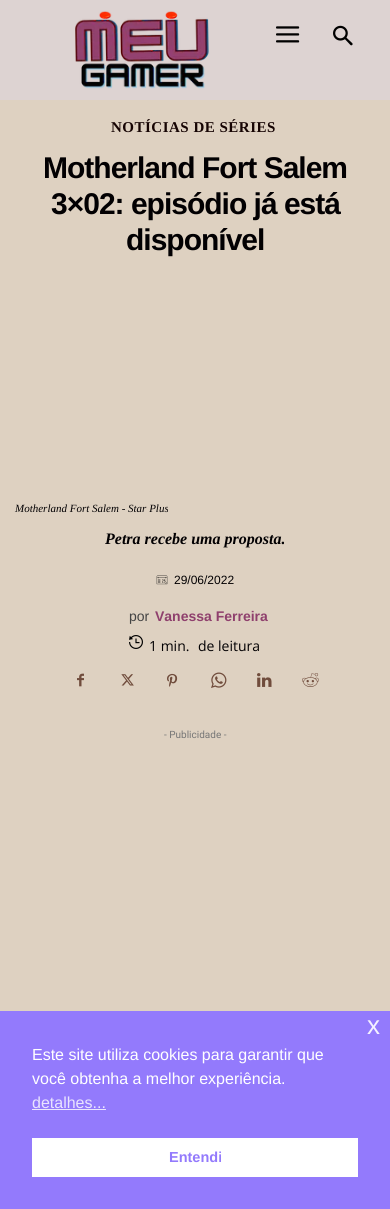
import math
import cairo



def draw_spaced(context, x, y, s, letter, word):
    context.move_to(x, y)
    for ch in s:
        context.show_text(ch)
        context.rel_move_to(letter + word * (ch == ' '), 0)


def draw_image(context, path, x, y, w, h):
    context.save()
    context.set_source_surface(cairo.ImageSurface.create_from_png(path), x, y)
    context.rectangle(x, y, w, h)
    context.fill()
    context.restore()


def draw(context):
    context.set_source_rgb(221 / 255, 211 / 255, 210 / 255)
    context.paint()
    draw_image(context, "images/1.png", 75, 11, 134, 78)
    draw_image(context, "images/2.png", 276, 26, 24, 17)
    draw_image(context, "images/3.png", 333, 25, 20, 21)
    context.set_source_rgb(222 / 255, 209 / 255, 193 / 255)
    context.rectangle(0, 100, 390, 911)
    context.fill()
    draw_image(context, "images/4.png", 156, 575, 12, 10)
    draw_image(context, "images/5.png", 129, 635, 14, 14)
    draw_image(context, "images/6.png", 77, 673, 7, 14)
    draw_image(context, "images/7.png", 121, 674, 13, 12)
    draw_image(context, "images/8.png", 167, 673, 11, 14)
    draw_image(context, "images/9.png", 211, 672, 16, 16)
    draw_image(context, "images/10.png", 257, 673, 15, 14)
    draw_image(context, "images/11.png", 302, 673, 17, 14)
    context.set_source_rgb(147 / 255, 122 / 255, 252 / 255)
    context.rectangle(0, 1011, 390, 198)
    context.fill()
    context.set_source_rgb(233 / 255, 228 / 255, 254 / 255)
    context.rectangle(32, 1109, 74, 1)
    context.fill()
    context.set_source_rgb(1, 1, 1)
    context.rectangle(32, 1138, 326, 39)
    context.fill()
    context.select_font_face("Liberation Serif", cairo.FontSlant.NORMAL, cairo.FontWeight.BOLD)
    context.set_font_size(15)
    context.set_source_rgb(22 / 255, 4 / 255, 3 / 255)
    draw_spaced(context, 111, 132, "NOTÍCIAS DE SÉRIES", 0.5, 0)
    context.select_font_face("Liberation Sans", cairo.FontSlant.NORMAL, cairo.FontWeight.BOLD)
    context.set_font_size(30)
    context.set_source_rgb(2 / 255, 0, 2 / 255)
    draw_spaced(context, 43, 178, "Motherland Fort Salem", -1, 0)
    draw_spaced(context, 51, 214, "3×02: episódio já está", -1, 0)
    draw_spaced(context, 126, 250, "disponível", -1, 0)
    context.select_font_face("Liberation Serif", cairo.FontSlant.ITALIC)
    context.set_font_size(11)
    context.move_to(15, 512)
    context.show_text("Motherland Fort Salem - Star Plus")
    context.select_font_face("Liberation Serif", cairo.FontSlant.ITALIC, cairo.FontWeight.BOLD)
    context.set_font_size(16)
    context.move_to(105, 544)
    context.show_text("Petra recebe uma proposta.")
    context.select_font_face("Liberation Sans")
    context.set_font_size(12)
    context.move_to(174, 584)
    context.show_text("29/06/2022")
    context.set_font_size(14)
    context.set_source_rgb(68 / 255, 68 / 255, 68 / 255)
    context.move_to(129, 621)
    context.show_text("por")
    context.select_font_face("Liberation Sans", cairo.FontSlant.NORMAL, cairo.FontWeight.BOLD)
    context.set_source_rgb(143 / 255, 64 / 255, 109 / 255)
    context.move_to(155, 621)
    context.show_text("Vanessa Ferreira")
    context.select_font_face("Open Sans")
    context.set_source_rgb(2 / 255, 0, 2 / 255)
    context.move_to(149, 651)
    context.show_text("1 min.")
    context.move_to(198, 651)
    context.show_text("de leitura")
    context.select_font_face("Roboto")
    context.set_font_size(10)
    context.set_source_rgb(118 / 255, 118 / 255, 118 / 255)
    context.move_to(164, 738)
    context.show_text("- Publicidade -")
    context.select_font_face("Liberation Sans")
    context.set_font_size(26)
    context.set_source_rgb(244 / 255, 242 / 255, 1)
    context.move_to(367, 1034)
    context.show_text("x")
    context.set_font_size(16)
    context.set_source_rgb(1, 1, 1)
    context.move_to(32, 1060)
    context.show_text("Este site utiliza cookies para garantir que")
    context.move_to(32, 1084)
    context.show_text("você obtenha a melhor experiência.")
    context.set_source_rgb(233 / 255, 228 / 255, 254 / 255)
    context.move_to(32, 1108)
    context.show_text("detalhes...")
    context.select_font_face("Liberation Sans", cairo.FontSlant.NORMAL, cairo.FontWeight.BOLD)
    context.set_font_size(14.5)
    context.set_source_rgb(147 / 255, 122 / 255, 252 / 255)
    context.move_to(169, 1162)
    context.show_text("Entendi")


surface = cairo.ImageSurface(cairo.Format.RGB24, 390, 1209)
context = cairo.Context(surface)
options = cairo.FontOptions()
options.set_hint_metrics(cairo.HintMetrics.OFF)
options.set_hint_style(cairo.HintStyle.NONE)
context.set_font_options(options)
context.set_miter_limit(4)
draw(context)
surface.write_to_png("out.png")
